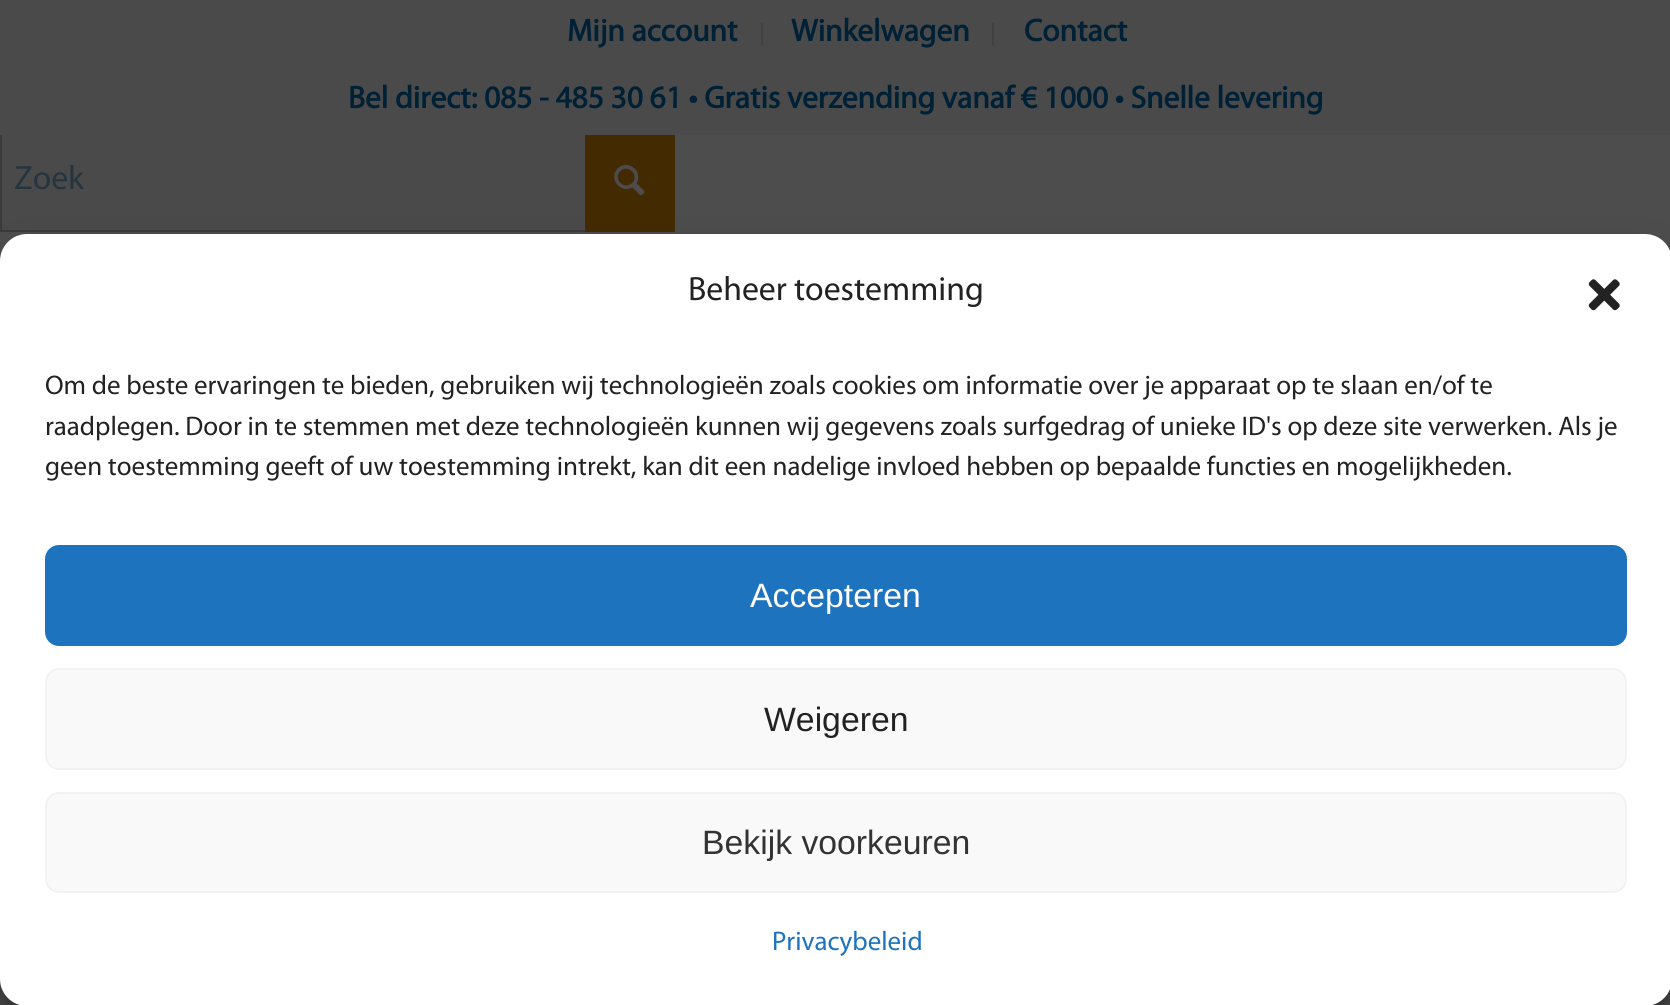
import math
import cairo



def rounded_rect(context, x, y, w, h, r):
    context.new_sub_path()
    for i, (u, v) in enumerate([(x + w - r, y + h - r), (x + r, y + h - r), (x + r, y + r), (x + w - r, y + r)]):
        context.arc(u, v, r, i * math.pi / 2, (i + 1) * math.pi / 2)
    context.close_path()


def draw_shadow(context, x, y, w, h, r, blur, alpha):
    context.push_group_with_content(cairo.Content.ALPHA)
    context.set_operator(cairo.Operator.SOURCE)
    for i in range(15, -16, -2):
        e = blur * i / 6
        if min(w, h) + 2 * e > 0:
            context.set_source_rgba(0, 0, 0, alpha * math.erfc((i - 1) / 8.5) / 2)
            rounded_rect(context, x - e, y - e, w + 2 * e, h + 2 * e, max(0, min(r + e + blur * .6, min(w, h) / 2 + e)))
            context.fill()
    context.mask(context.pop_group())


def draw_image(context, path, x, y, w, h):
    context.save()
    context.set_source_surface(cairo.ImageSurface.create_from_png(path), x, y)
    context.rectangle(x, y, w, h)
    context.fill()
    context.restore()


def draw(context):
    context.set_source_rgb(77 / 255, 77 / 255, 77 / 255)
    context.paint()
    context.set_source_rgb(74 / 255, 74 / 255, 74 / 255)
    context.rectangle(2, 135, 583, 95)
    context.fill()
    context.rectangle(1, 134, 673, 97)
    context.set_source_rgb(58 / 255, 58 / 255, 58 / 255)
    context.stroke()
    context.set_source_rgb(74 / 255, 74 / 255, 74 / 255)
    context.rectangle(0, 0, 1670, 135)
    context.fill()
    context.set_source_rgb(65 / 255, 65 / 255, 67 / 255)
    context.rectangle(761, 23, 2, 22)
    context.fill()
    context.rectangle(992, 23, 2, 22)
    context.fill()
    context.set_source_rgb(68 / 255, 42 / 255, 1 / 255)
    context.rectangle(585, 135, 90, 97)
    context.fill()
    draw_image(context, "images/1.png", 614, 165, 31, 31)
    context.set_source_rgb(0, 0, 0)
    draw_shadow(context, 0, 248, 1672, 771, 27, 7, 0.23)
    draw_shadow(context, 0, 257, 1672, 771, 27, 22.5, 0.19)
    context.set_source_rgb(1, 1, 1)
    rounded_rect(context, 0, 234, 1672, 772, 27)
    context.fill()
    draw_image(context, "images/2.png", 1588, 279, 32, 32)
    context.set_source_rgb(30 / 255, 115 / 255, 190 / 255)
    rounded_rect(context, 46, 546, 1580, 99, 13)
    context.fill_preserve()
    context.stroke()
    context.set_source_rgb(249 / 255, 249 / 255, 249 / 255)
    rounded_rect(context, 46, 669, 1580, 100, 13)
    context.fill_preserve()
    context.set_source_rgb(242 / 255, 242 / 255, 242 / 255)
    context.stroke()
    context.set_source_rgb(249 / 255, 249 / 255, 249 / 255)
    rounded_rect(context, 46, 793, 1580, 99, 13)
    context.fill_preserve()
    context.set_source_rgb(242 / 255, 242 / 255, 242 / 255)
    context.stroke()
    context.select_font_face("Myriad", cairo.FontSlant.NORMAL, cairo.FontWeight.BOLD)
    context.set_font_size(31.5)
    context.set_source_rgb(0, 32 / 255, 54 / 255)
    context.move_to(567, 41)
    context.show_text("Mijn account")
    context.move_to(791, 41)
    context.show_text("Winkelwagen")
    context.move_to(1024, 41)
    context.show_text("Contact")
    context.move_to(348, 108)
    context.show_text("Bel direct: 085 - 485 30 61 • Gratis verzending vanaf € 1000 • Snelle levering")
    context.select_font_face("Myriad")
    context.set_font_size(33.75)
    context.set_source_rgb(37 / 255, 53 / 255, 64 / 255)
    context.move_to(14, 189)
    context.show_text("Zoek")
    context.set_source_rgb(34 / 255, 34 / 255, 34 / 255)
    context.move_to(688, 300)
    context.show_text("Beheer toestemming")
    context.set_font_size(27)
    context.move_to(45, 394)
    context.show_text("Om de beste ervaringen te bieden, gebruiken wij technologieën zoals cookies om informatie over je apparaat op te slaan en/of te")
    context.move_to(45, 435)
    context.show_text("raadplegen. Door in te stemmen met deze technologieën kunnen wij gegevens zoals surfgedrag of unieke ID's op deze site verwerken. Als je")
    context.move_to(45, 475)
    context.show_text("geen toestemming geeft of uw toestemming intrekt, kan dit een nadelige invloed hebben op bepaalde functies en mogelijkheden.")
    context.select_font_face("Liberation Sans")
    context.set_font_size(33.75)
    context.set_source_rgb(1, 1, 1)
    context.move_to(750, 607)
    context.show_text("Accepteren")
    context.set_source_rgb(34 / 255, 34 / 255, 34 / 255)
    context.move_to(764, 731)
    context.show_text("Weigeren")
    context.set_source_rgb(51 / 255, 51 / 255, 51 / 255)
    context.move_to(702, 854)
    context.show_text("Bekijk voorkeuren")
    context.select_font_face("Myriad")
    context.set_font_size(27)
    context.set_source_rgb(30 / 255, 115 / 255, 190 / 255)
    context.move_to(772, 950)
    context.show_text("Privacybeleid")


surface = cairo.ImageSurface(cairo.Format.RGB24, 1670, 1005)
context = cairo.Context(surface)
options = cairo.FontOptions()
options.set_hint_metrics(cairo.HintMetrics.OFF)
options.set_hint_style(cairo.HintStyle.NONE)
context.set_font_options(options)
context.set_miter_limit(4)
draw(context)
surface.write_to_png("out.png")
